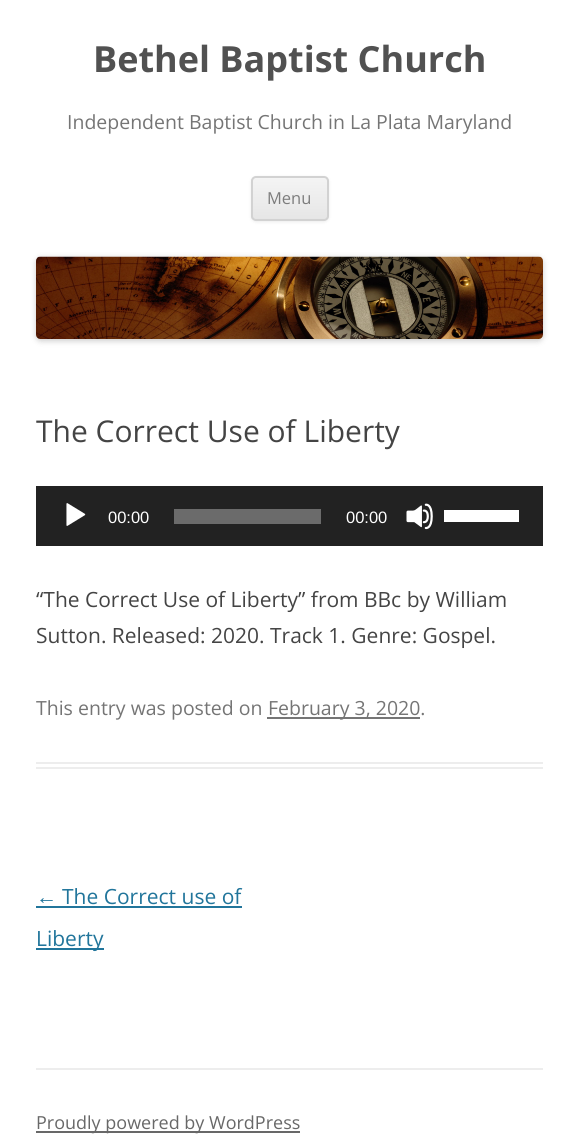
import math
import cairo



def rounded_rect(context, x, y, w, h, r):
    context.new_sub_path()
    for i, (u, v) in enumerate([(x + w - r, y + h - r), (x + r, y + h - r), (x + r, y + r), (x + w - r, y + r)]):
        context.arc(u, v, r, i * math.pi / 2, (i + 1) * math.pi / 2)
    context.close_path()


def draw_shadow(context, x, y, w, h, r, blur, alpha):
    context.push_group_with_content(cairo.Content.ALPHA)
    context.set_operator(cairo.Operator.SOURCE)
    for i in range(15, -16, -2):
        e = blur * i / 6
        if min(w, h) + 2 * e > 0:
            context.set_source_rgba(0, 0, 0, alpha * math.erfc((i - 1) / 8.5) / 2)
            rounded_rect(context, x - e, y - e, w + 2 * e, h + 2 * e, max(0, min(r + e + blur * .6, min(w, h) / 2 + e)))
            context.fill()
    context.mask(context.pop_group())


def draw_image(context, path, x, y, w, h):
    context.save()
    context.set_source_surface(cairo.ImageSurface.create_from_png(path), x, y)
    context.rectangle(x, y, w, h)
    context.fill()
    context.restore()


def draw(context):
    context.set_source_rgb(1, 1, 1)
    context.paint()
    context.set_source_rgb(64 / 255, 64 / 255, 64 / 255)
    draw_shadow(context, 251, 177, 78, 45, 5, 1.5, 0.1)
    context.save()
    rounded_rect(context, 251, 176, 78, 45, 5)
    context.clip()
    gradient = cairo.LinearGradient(290, 177, 290, 219)
    gradient.add_color_stop_rgba(0, 244 / 255, 244 / 255, 244 / 255, 1)
    gradient.add_color_stop_rgba(1, 230 / 255, 230 / 255, 230 / 255, 1)
    context.set_source(gradient)
    context.rectangle(251, 177, 78, 42)
    context.fill()
    context.restore()
    rounded_rect(context, 252, 177, 76, 43, 4)
    context.set_source_rgb(210 / 255, 210 / 255, 210 / 255)
    context.stroke()
    context.set_source_rgb(0, 0, 0)
    draw_shadow(context, 36, 258, 507, 83, 5, 3, 0.2)
    draw_image(context, "images/1.png", 36, 256, 507, 83)
    context.set_source_rgb(237 / 255, 237 / 255, 237 / 255)
    context.rectangle(36, 762, 507, 2)
    context.fill()
    context.rectangle(36, 767, 507, 2)
    context.fill()
    context.set_source_rgb(34 / 255, 34 / 255, 34 / 255)
    context.rectangle(36, 486, 507, 60)
    context.fill()
    draw_image(context, "images/2.png", 66, 503, 20, 23)
    context.set_source_rgb(107 / 255, 107 / 255, 107 / 255)
    context.rectangle(174, 509, 147, 15)
    context.fill()
    draw_image(context, "images/3.png", 406, 503, 27, 27)
    context.set_source_rgb(1, 1, 1)
    context.rectangle(444, 510, 75, 12)
    context.fill()
    context.set_source_rgb(117 / 255, 117 / 255, 117 / 255)
    context.rectangle(267, 717, 153, 2)
    context.fill()
    context.set_source_rgb(33 / 255, 117 / 255, 155 / 255)
    context.rectangle(36, 906, 206, 2)
    context.fill()
    context.rectangle(36, 948, 68, 2)
    context.fill()
    context.set_source_rgb(237 / 255, 237 / 255, 237 / 255)
    context.rectangle(36, 1068, 507, 2)
    context.fill()
    context.set_source_rgb(104 / 255, 104 / 255, 104 / 255)
    context.rectangle(36, 1131, 264, 2)
    context.fill()
    context.select_font_face("Open Sans", cairo.FontSlant.NORMAL, cairo.FontWeight.BOLD)
    context.set_font_size(36)
    context.set_source_rgb(81 / 255, 81 / 255, 81 / 255)
    context.move_to(93, 72)
    context.show_text("Bethel Baptist Church")
    context.select_font_face("Open Sans")
    context.set_font_size(19.5)
    context.set_source_rgb(117 / 255, 117 / 255, 117 / 255)
    context.move_to(67, 129)
    context.show_text("Independent Baptist Church in La Plata Maryland")
    context.set_font_size(16.5)
    context.set_source_rgb(124 / 255, 124 / 255, 124 / 255)
    context.move_to(267, 204)
    context.show_text("Menu")
    context.set_font_size(30)
    context.set_source_rgb(68 / 255, 68 / 255, 68 / 255)
    context.move_to(36, 442)
    context.show_text("The Correct Use of Liberty")
    context.select_font_face("Liberation Sans")
    context.set_font_size(16.5)
    context.set_source_rgb(1, 1, 1)
    context.move_to(108, 523)
    context.show_text("00:00")
    context.move_to(346, 523)
    context.show_text("00:00")
    context.select_font_face("Open Sans")
    context.set_font_size(21)
    context.set_source_rgb(68 / 255, 68 / 255, 68 / 255)
    context.move_to(36, 607)
    context.show_text("“The Correct Use of Liberty” from BBc by William")
    context.move_to(36, 643)
    context.show_text("Sutton. Released: 2020. Track 1. Genre: Gospel.")
    context.set_font_size(19.5)
    context.set_source_rgb(117 / 255, 117 / 255, 117 / 255)
    context.move_to(36, 715)
    context.show_text("This entry was posted on")
    context.move_to(268, 715)
    context.show_text("February 3, 2020.")
    context.select_font_face("Liberation Sans")
    context.set_font_size(21)
    context.set_source_rgb(33 / 255, 117 / 255, 155 / 255)
    context.move_to(36, 904)
    context.show_text("←")
    context.select_font_face("Open Sans")
    context.move_to(62, 904)
    context.show_text("The Correct use of")
    context.move_to(36, 946)
    context.show_text("Liberty")
    context.set_font_size(18)
    context.set_source_rgb(104 / 255, 104 / 255, 104 / 255)
    context.move_to(36, 1129)
    context.show_text("Proudly powered by WordPress")


surface = cairo.ImageSurface(cairo.Format.RGB24, 578, 1147)
context = cairo.Context(surface)
options = cairo.FontOptions()
options.set_hint_metrics(cairo.HintMetrics.OFF)
options.set_hint_style(cairo.HintStyle.NONE)
context.set_font_options(options)
context.set_miter_limit(4)
draw(context)
surface.write_to_png("out.png")
